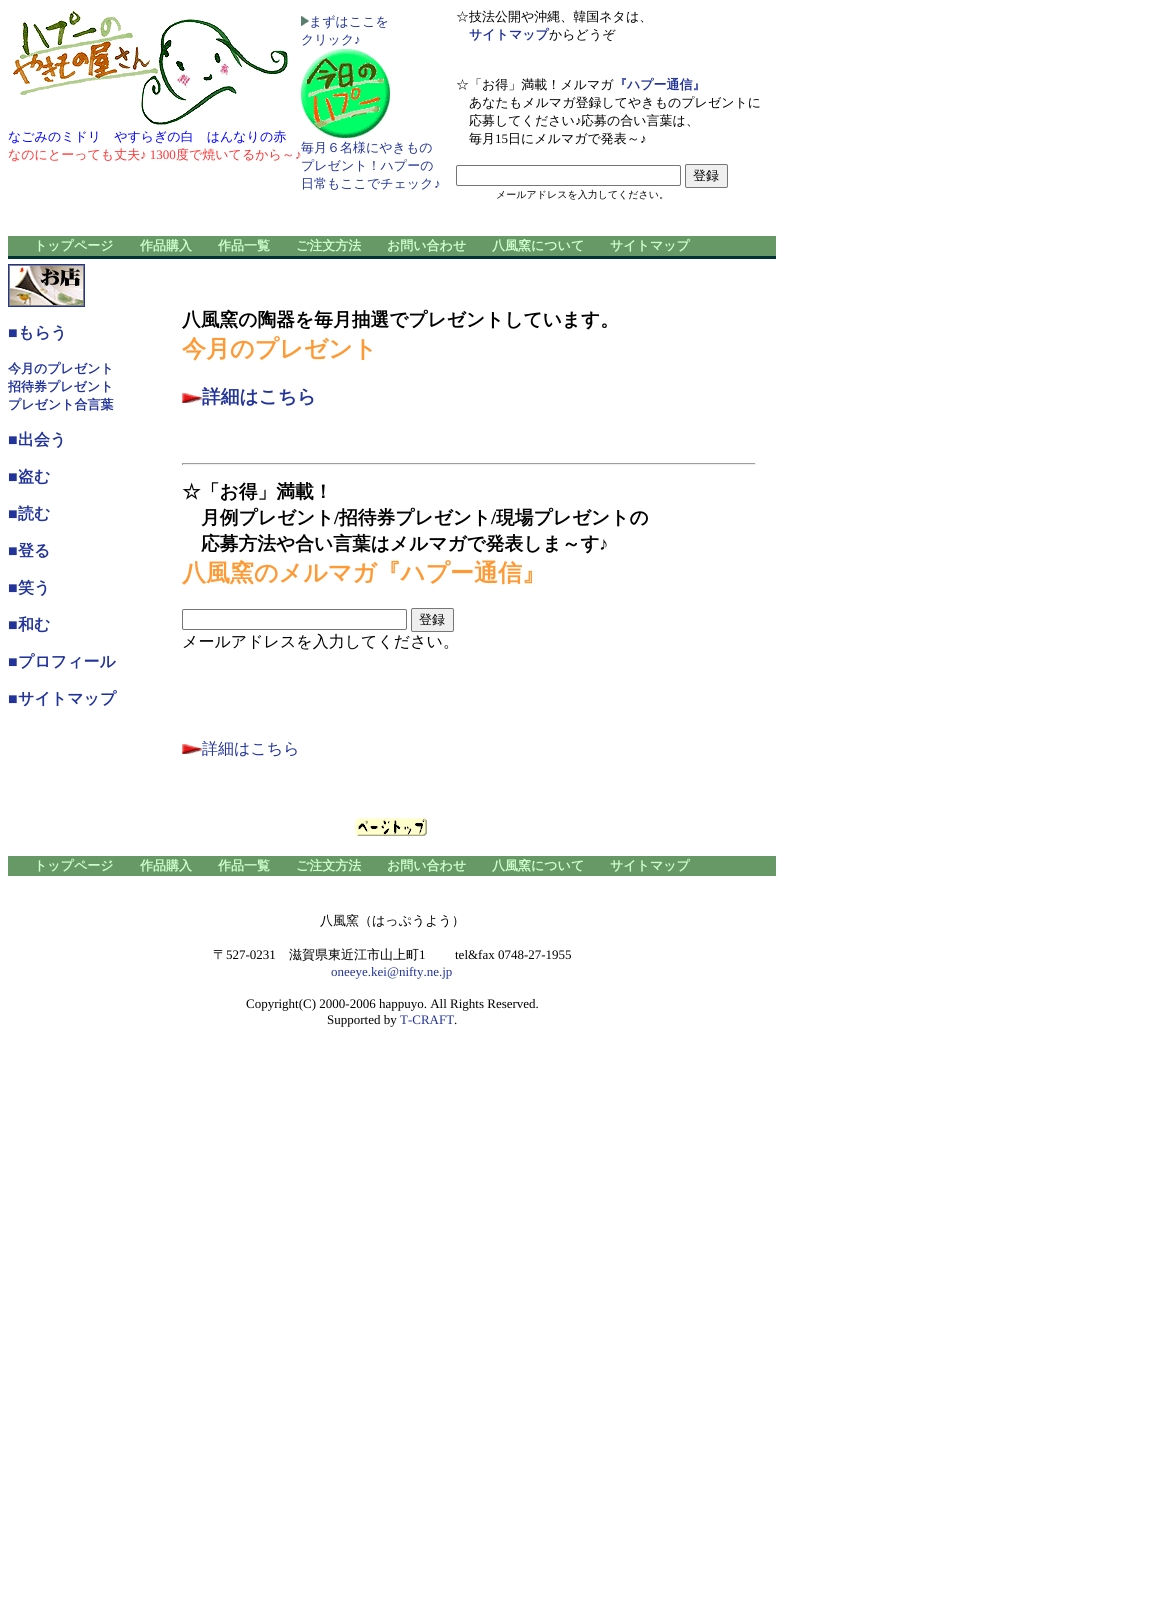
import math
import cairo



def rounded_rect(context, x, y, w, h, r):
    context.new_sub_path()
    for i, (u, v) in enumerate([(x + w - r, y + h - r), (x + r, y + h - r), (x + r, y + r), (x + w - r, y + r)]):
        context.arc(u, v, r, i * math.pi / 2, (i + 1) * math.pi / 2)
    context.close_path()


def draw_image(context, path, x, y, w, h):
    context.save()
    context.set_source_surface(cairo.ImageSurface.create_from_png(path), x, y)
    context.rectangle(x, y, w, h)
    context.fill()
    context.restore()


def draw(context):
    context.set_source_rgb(1, 1, 1)
    context.paint()
    draw_image(context, "images/1.png", 13, 11, 275, 114)
    draw_image(context, "images/2.png", 301, 16, 8, 10)
    draw_image(context, "images/3.png", 301, 49, 89, 89)
    rounded_rect(context, 456.5, 165.5, 224, 20, 1.5)
    context.set_source_rgb(118 / 255, 118 / 255, 118 / 255)
    context.set_line_width(1)
    context.stroke()
    context.set_source_rgb(239 / 255, 239 / 255, 239 / 255)
    rounded_rect(context, 685.5, 164.5, 42, 23, 1.5)
    context.fill_preserve()
    context.set_source_rgb(118 / 255, 118 / 255, 118 / 255)
    context.stroke()
    context.set_source_rgb(102 / 255, 153 / 255, 102 / 255)
    context.rectangle(8, 236, 768, 20)
    context.fill()
    context.set_source_rgb(0, 51 / 255, 51 / 255)
    context.rectangle(8, 256, 768, 3)
    context.fill()
    context.rectangle(8.5, 264.5, 76, 42)
    context.set_source_rgb(34 / 255, 51 / 255, 153 / 255)
    context.stroke()
    draw_image(context, "images/4.png", 9, 265, 75, 41)
    draw_image(context, "images/5.png", 182, 393, 20, 10)
    context.set_source_rgb(159 / 255, 159 / 255, 159 / 255)
    context.rectangle(182, 463, 574, 1)
    context.fill()
    context.set_source_rgb(238 / 255, 238 / 255, 238 / 255)
    context.rectangle(755, 463, 1, 2)
    context.fill()
    context.rectangle(182, 464, 574, 1)
    context.fill()
    context.set_source_rgb(159 / 255, 159 / 255, 159 / 255)
    context.rectangle(182, 463, 1, 2)
    context.fill()
    rounded_rect(context, 182.5, 609.5, 224, 20, 1.5)
    context.set_source_rgb(118 / 255, 118 / 255, 118 / 255)
    context.stroke()
    context.set_source_rgb(239 / 255, 239 / 255, 239 / 255)
    rounded_rect(context, 411.5, 608.5, 42, 23, 1.5)
    context.fill_preserve()
    context.set_source_rgb(118 / 255, 118 / 255, 118 / 255)
    context.stroke()
    draw_image(context, "images/5.png", 182, 744, 20, 10)
    draw_image(context, "images/6.png", 355, 818, 72, 18)
    context.set_source_rgb(102 / 255, 153 / 255, 102 / 255)
    context.rectangle(8, 856, 768, 20)
    context.fill()
    context.select_font_face("WenQuanYi Zen Hei Medium")
    context.set_font_size(13)
    context.set_source_rgb(0, 0, 1)
    context.move_to(8, 141)
    context.show_text("なごみのミドリ　やすらぎの白　はんなりの赤")
    context.set_source_rgb(1, 51 / 255, 51 / 255)
    context.move_to(8, 159)
    context.show_text("なのにとーっても丈夫")
    context.select_font_face("Liberation Serif")
    context.move_to(140, 159)
    context.show_text("♪ 1300")
    context.select_font_face("WenQuanYi Zen Hei Medium")
    context.move_to(176, 159)
    context.show_text("度で焼いてるから～")
    context.select_font_face("Liberation Serif")
    context.move_to(295, 159)
    context.show_text("♪")
    context.select_font_face("WenQuanYi Zen Hei Medium")
    context.set_source_rgb(34 / 255, 51 / 255, 153 / 255)
    context.move_to(309, 26)
    context.show_text("まずはここを")
    context.move_to(301, 44)
    context.show_text("クリック")
    context.select_font_face("Liberation Serif")
    context.move_to(354, 44)
    context.show_text("♪")
    context.select_font_face("WenQuanYi Zen Hei Medium")
    context.move_to(301, 152)
    context.show_text("毎月６名様にやきもの")
    context.move_to(301, 170)
    context.show_text("プレゼント！ハプーの")
    context.move_to(301, 188)
    context.show_text("日常もここでチェック")
    context.select_font_face("Liberation Serif")
    context.move_to(434, 188)
    context.show_text("♪")
    context.select_font_face("WenQuanYi Zen Hei Medium")
    context.set_source_rgb(0, 0, 0)
    context.move_to(456, 21)
    context.show_text("☆技法公開や沖縄、韓国ネタは、")
    context.select_font_face("WenQuanYi Zen Hei", cairo.FontSlant.NORMAL, cairo.FontWeight.BOLD)
    context.set_source_rgb(34 / 255, 51 / 255, 153 / 255)
    context.move_to(469, 39)
    context.show_text("サイトマップ")
    context.select_font_face("WenQuanYi Zen Hei Medium")
    context.set_source_rgb(0, 0, 0)
    context.move_to(549, 39)
    context.show_text("からどうぞ")
    context.move_to(456, 89)
    context.show_text("☆「お得」満載！メルマガ")
    context.select_font_face("WenQuanYi Zen Hei", cairo.FontSlant.NORMAL, cairo.FontWeight.BOLD)
    context.set_source_rgb(34 / 255, 51 / 255, 153 / 255)
    context.move_to(614, 89)
    context.show_text("『ハプー通信』")
    context.select_font_face("WenQuanYi Zen Hei Medium")
    context.set_source_rgb(0, 0, 0)
    context.move_to(469, 107)
    context.show_text("あなたもメルマガ登録してやきものプレゼントに")
    context.move_to(469, 125)
    context.show_text("応募してください")
    context.select_font_face("Liberation Serif")
    context.move_to(575, 125)
    context.show_text("♪")
    context.select_font_face("WenQuanYi Zen Hei Medium")
    context.move_to(581, 125)
    context.show_text("応募の合い言葉は、")
    context.move_to(469, 143)
    context.show_text("毎月")
    context.select_font_face("Liberation Serif")
    context.move_to(495, 143)
    context.show_text("15")
    context.select_font_face("WenQuanYi Zen Hei Medium")
    context.move_to(508, 143)
    context.show_text("日にメルマガで発表～")
    context.select_font_face("Liberation Serif")
    context.move_to(640, 143)
    context.show_text("♪")
    context.select_font_face("WenQuanYi Zen Hei Medium")
    context.move_to(693, 180)
    context.show_text("登録")
    context.set_font_size(10)
    context.move_to(496, 198)
    context.show_text("メールアドレスを入力してください。")
    context.select_font_face("WenQuanYi Zen Hei", cairo.FontSlant.NORMAL, cairo.FontWeight.BOLD)
    context.set_font_size(13)
    context.set_source_rgb(204 / 255, 1, 204 / 255)
    context.move_to(34, 250)
    context.show_text("トップページ")
    context.move_to(140, 250)
    context.show_text("作品購入")
    context.move_to(218, 250)
    context.show_text("作品一覧")
    context.move_to(296, 250)
    context.show_text("ご注文方法")
    context.move_to(387, 250)
    context.show_text("お問い合わせ")
    context.move_to(492, 250)
    context.show_text("八風窯について")
    context.move_to(610, 250)
    context.show_text("サイトマップ")
    context.select_font_face("Liberation Serif", cairo.FontSlant.NORMAL, cairo.FontWeight.BOLD)
    context.set_font_size(16)
    context.set_source_rgb(34 / 255, 51 / 255, 153 / 255)
    context.move_to(8, 338)
    context.show_text("■")
    context.select_font_face("WenQuanYi Zen Hei", cairo.FontSlant.NORMAL, cairo.FontWeight.BOLD)
    context.move_to(18, 338)
    context.show_text("もらう")
    context.set_font_size(13)
    context.move_to(8, 373)
    context.show_text("今月のプレゼント")
    context.move_to(8, 391)
    context.show_text("招待券プレゼント")
    context.move_to(8, 409)
    context.show_text("プレゼント合言葉")
    context.select_font_face("Liberation Serif", cairo.FontSlant.NORMAL, cairo.FontWeight.BOLD)
    context.set_font_size(16)
    context.move_to(8, 445)
    context.show_text("■")
    context.select_font_face("WenQuanYi Zen Hei", cairo.FontSlant.NORMAL, cairo.FontWeight.BOLD)
    context.move_to(18, 445)
    context.show_text("出会う")
    context.select_font_face("Liberation Serif", cairo.FontSlant.NORMAL, cairo.FontWeight.BOLD)
    context.move_to(8, 482)
    context.show_text("■")
    context.select_font_face("WenQuanYi Zen Hei", cairo.FontSlant.NORMAL, cairo.FontWeight.BOLD)
    context.move_to(18, 482)
    context.show_text("盗む")
    context.select_font_face("Liberation Serif", cairo.FontSlant.NORMAL, cairo.FontWeight.BOLD)
    context.move_to(8, 519)
    context.show_text("■")
    context.select_font_face("WenQuanYi Zen Hei", cairo.FontSlant.NORMAL, cairo.FontWeight.BOLD)
    context.move_to(18, 519)
    context.show_text("読む")
    context.select_font_face("Liberation Serif", cairo.FontSlant.NORMAL, cairo.FontWeight.BOLD)
    context.move_to(8, 556)
    context.show_text("■")
    context.select_font_face("WenQuanYi Zen Hei", cairo.FontSlant.NORMAL, cairo.FontWeight.BOLD)
    context.move_to(18, 556)
    context.show_text("登る")
    context.select_font_face("Liberation Serif", cairo.FontSlant.NORMAL, cairo.FontWeight.BOLD)
    context.move_to(8, 593)
    context.show_text("■")
    context.select_font_face("WenQuanYi Zen Hei", cairo.FontSlant.NORMAL, cairo.FontWeight.BOLD)
    context.move_to(18, 593)
    context.show_text("笑う")
    context.select_font_face("Liberation Serif", cairo.FontSlant.NORMAL, cairo.FontWeight.BOLD)
    context.move_to(8, 630)
    context.show_text("■")
    context.select_font_face("WenQuanYi Zen Hei", cairo.FontSlant.NORMAL, cairo.FontWeight.BOLD)
    context.move_to(18, 630)
    context.show_text("和む")
    context.select_font_face("Liberation Serif", cairo.FontSlant.NORMAL, cairo.FontWeight.BOLD)
    context.move_to(8, 667)
    context.show_text("■")
    context.select_font_face("WenQuanYi Zen Hei", cairo.FontSlant.NORMAL, cairo.FontWeight.BOLD)
    context.move_to(18, 667)
    context.show_text("プロフィール")
    context.select_font_face("Liberation Serif", cairo.FontSlant.NORMAL, cairo.FontWeight.BOLD)
    context.move_to(8, 704)
    context.show_text("■")
    context.select_font_face("WenQuanYi Zen Hei", cairo.FontSlant.NORMAL, cairo.FontWeight.BOLD)
    context.move_to(18, 704)
    context.show_text("サイトマップ")
    context.set_font_size(18.75)
    context.set_source_rgb(0, 0, 0)
    context.move_to(182, 326)
    context.show_text("八風窯の陶器を毎月抽選でプレゼントしています。")
    context.set_font_size(24)
    context.set_source_rgb(1, 153 / 255, 51 / 255)
    context.move_to(182, 357)
    context.show_text("今月のプレゼント")
    context.set_font_size(18.75)
    context.set_source_rgb(34 / 255, 51 / 255, 153 / 255)
    context.move_to(202, 403)
    context.show_text("詳細はこちら")
    context.set_source_rgb(0, 0, 0)
    context.move_to(182, 498)
    context.show_text("☆「お得」満載！")
    context.move_to(201, 524)
    context.show_text("月例プレゼント")
    context.select_font_face("Liberation Serif", cairo.FontSlant.NORMAL, cairo.FontWeight.BOLD)
    context.move_to(334, 524)
    context.show_text("/")
    context.select_font_face("WenQuanYi Zen Hei", cairo.FontSlant.NORMAL, cairo.FontWeight.BOLD)
    context.move_to(339, 524)
    context.show_text("招待券プレゼント")
    context.select_font_face("Liberation Serif", cairo.FontSlant.NORMAL, cairo.FontWeight.BOLD)
    context.move_to(491, 524)
    context.show_text("/")
    context.select_font_face("WenQuanYi Zen Hei", cairo.FontSlant.NORMAL, cairo.FontWeight.BOLD)
    context.move_to(496, 524)
    context.show_text("現場プレゼントの")
    context.move_to(201, 550)
    context.show_text("応募方法や合い言葉はメルマガで発表しま～す")
    context.select_font_face("Liberation Serif", cairo.FontSlant.NORMAL, cairo.FontWeight.BOLD)
    context.move_to(599, 550)
    context.show_text("♪")
    context.select_font_face("WenQuanYi Zen Hei", cairo.FontSlant.NORMAL, cairo.FontWeight.BOLD)
    context.set_font_size(24)
    context.set_source_rgb(1, 153 / 255, 51 / 255)
    context.move_to(182, 581)
    context.show_text("八風窯のメルマガ『ハプー通信』")
    context.select_font_face("WenQuanYi Zen Hei Medium")
    context.set_font_size(13)
    context.set_source_rgb(0, 0, 0)
    context.move_to(419, 624)
    context.show_text("登録")
    context.set_font_size(16)
    context.move_to(182, 647)
    context.show_text("メールアドレスを入力してください。")
    context.set_source_rgb(34 / 255, 51 / 255, 153 / 255)
    context.move_to(202, 754)
    context.show_text("詳細はこちら")
    context.select_font_face("WenQuanYi Zen Hei", cairo.FontSlant.NORMAL, cairo.FontWeight.BOLD)
    context.set_font_size(13)
    context.set_source_rgb(204 / 255, 1, 204 / 255)
    context.move_to(34, 870)
    context.show_text("トップページ")
    context.move_to(140, 870)
    context.show_text("作品購入")
    context.move_to(218, 870)
    context.show_text("作品一覧")
    context.move_to(296, 870)
    context.show_text("ご注文方法")
    context.move_to(387, 870)
    context.show_text("お問い合わせ")
    context.move_to(492, 870)
    context.show_text("八風窯について")
    context.move_to(610, 870)
    context.show_text("サイトマップ")
    context.select_font_face("WenQuanYi Zen Hei Medium")
    context.set_source_rgb(0, 0, 0)
    context.move_to(320, 925)
    context.show_text("八風窯（はっぷうよう）")
    context.move_to(213, 959)
    context.show_text("〒")
    context.select_font_face("Liberation Serif")
    context.move_to(226, 959)
    context.show_text("527-0231")
    context.select_font_face("WenQuanYi Zen Hei Medium")
    context.move_to(289, 959)
    context.show_text("滋賀県東近江市山上町")
    context.select_font_face("Liberation Serif")
    context.move_to(419, 959)
    context.show_text("1")
    context.move_to(455, 959)
    context.show_text("tel&fax 0748-27-1955")
    context.set_source_rgb(34 / 255, 51 / 255, 153 / 255)
    context.move_to(331, 976)
    context.show_text("oneeye.kei@nifty.ne.jp")
    context.set_source_rgb(0, 0, 0)
    context.move_to(246, 1008)
    context.show_text("Copyright(C) 2000-2006 happuyo. All Rights Reserved.")
    context.move_to(327, 1024)
    context.show_text("Supported by")
    context.set_source_rgb(34 / 255, 51 / 255, 153 / 255)
    context.move_to(400, 1024)
    context.show_text("T-CRAFT")
    context.set_source_rgb(0, 0, 0)
    context.move_to(454, 1024)
    context.show_text(".")


surface = cairo.ImageSurface(cairo.Format.RGB24, 1157, 1601)
context = cairo.Context(surface)
options = cairo.FontOptions()
options.set_hint_metrics(cairo.HintMetrics.OFF)
options.set_hint_style(cairo.HintStyle.NONE)
context.set_font_options(options)
context.set_miter_limit(4)
draw(context)
surface.write_to_png("out.png")
